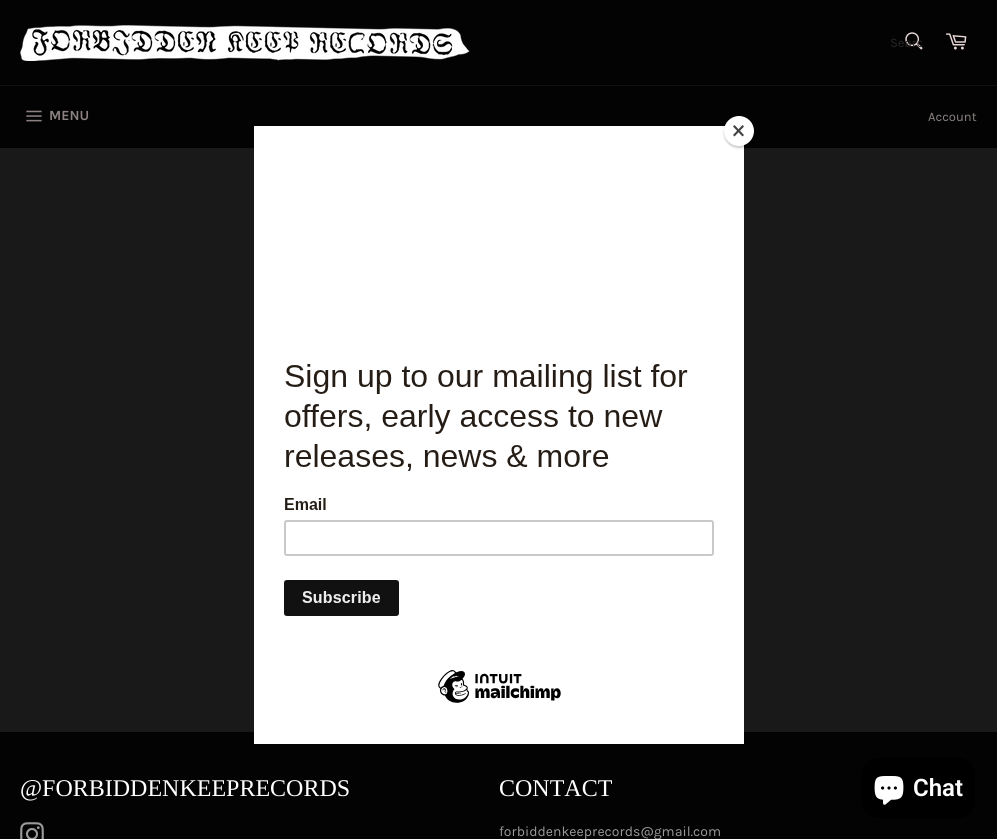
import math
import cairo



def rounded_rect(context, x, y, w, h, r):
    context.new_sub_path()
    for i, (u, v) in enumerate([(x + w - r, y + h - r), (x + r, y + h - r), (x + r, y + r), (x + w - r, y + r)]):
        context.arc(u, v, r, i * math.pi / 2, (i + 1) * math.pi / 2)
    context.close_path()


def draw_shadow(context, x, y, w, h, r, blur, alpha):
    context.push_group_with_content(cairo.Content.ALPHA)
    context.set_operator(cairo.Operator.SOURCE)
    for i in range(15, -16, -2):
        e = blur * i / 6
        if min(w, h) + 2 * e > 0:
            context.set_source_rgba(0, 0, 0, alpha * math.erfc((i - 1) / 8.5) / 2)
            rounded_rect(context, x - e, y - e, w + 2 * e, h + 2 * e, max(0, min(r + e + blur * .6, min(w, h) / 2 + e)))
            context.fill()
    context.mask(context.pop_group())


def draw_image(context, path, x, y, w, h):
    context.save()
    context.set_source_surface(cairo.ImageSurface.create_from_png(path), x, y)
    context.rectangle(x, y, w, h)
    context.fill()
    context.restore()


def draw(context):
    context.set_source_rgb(25 / 255, 25 / 255, 25 / 255)
    context.paint()
    context.set_source_rgb(3 / 255, 3 / 255, 3 / 255)
    context.rectangle(0, 0, 997, 85)
    context.fill()
    draw_image(context, "images/1.png", 20, 25, 450, 36)
    draw_image(context, "images/2.png", 905, 32, 18, 18)
    draw_image(context, "images/3.png", 945, 33, 22, 17)
    context.rectangle(0, 86, 997, 62)
    context.fill()
    context.set_source_rgb(16 / 255, 16 / 255, 16 / 255)
    context.rectangle(0, 85, 997, 1)
    context.fill()
    draw_image(context, "images/4.png", 26, 110, 16, 12)
    context.set_source_rgb(3 / 255, 3 / 255, 3 / 255)
    context.rectangle(0, 732, 997, 107)
    context.fill()
    draw_image(context, "images/5.png", 254, 126, 490, 618)
    context.set_source_rgb(0, 0, 0)
    draw_shadow(context, 724, 118, 30, 30, 15, 1, 0.2)
    context.set_source_rgb(1, 1, 1)
    context.arc(739, 131, 15, 0, 2 * math.pi)
    context.fill()
    context.set_source_rgb(65 / 255, 65 / 255, 65 / 255)
    context.new_path()
    context.move_to(742.5, 125)
    context.line_to(744, 126.5)
    context.line_to(734.5, 136.5)
    context.line_to(733, 135)
    context.close_path()
    context.fill()
    context.new_path()
    context.move_to(733, 126.5)
    context.line_to(734.5, 125)
    context.line_to(744, 135)
    context.line_to(742.5, 136.5)
    context.close_path()
    context.fill()
    draw_image(context, "images/6.png", 20, 822, 24, 17)
    context.set_source_rgb(0, 0, 0)
    rounded_rect(context, 862, 758, 113, 60, 16)
    context.fill()
    draw_image(context, "images/7.png", 874, 776, 30, 29)
    context.save()
    context.rectangle(890, 35, 32, 15)
    context.clip()
    context.select_font_face("Karla")
    context.set_font_size(13)
    context.set_source_rgb(39 / 255, 36 / 255, 36 / 255)
    context.move_to(890, 47)
    context.show_text("Searc")
    context.restore()
    context.select_font_face("Karla", cairo.FontSlant.NORMAL, cairo.FontWeight.BOLD)
    context.set_font_size(14)
    context.set_source_rgb(141 / 255, 130 / 255, 130 / 255)
    context.move_to(49, 120)
    context.show_text("MENU")
    context.select_font_face("Karla")
    context.set_font_size(13)
    context.move_to(928, 121)
    context.show_text("Account")
    context.select_font_face("Liberation Serif")
    context.set_font_size(24)
    context.set_source_rgb(1, 1, 1)
    context.move_to(20, 796)
    context.show_text("@FORBIDDENKEEPRECORDS")
    context.move_to(499, 796)
    context.show_text("CONTACT")
    context.select_font_face("Karla")
    context.set_font_size(14)
    context.set_source_rgb(154 / 255, 154 / 255, 154 / 255)
    context.move_to(499, 836)
    context.show_text("forbiddenkeeprecords@gmail.com")
    context.select_font_face("Roboto SemiBold")
    context.set_font_size(24)
    context.set_source_rgb(1, 1, 1)
    context.move_to(913, 796)
    context.show_text("Chat")


surface = cairo.ImageSurface(cairo.Format.RGB24, 997, 839)
context = cairo.Context(surface)
options = cairo.FontOptions()
options.set_hint_metrics(cairo.HintMetrics.OFF)
options.set_hint_style(cairo.HintStyle.NONE)
context.set_font_options(options)
context.set_miter_limit(4)
draw(context)
surface.write_to_png("out.png")
